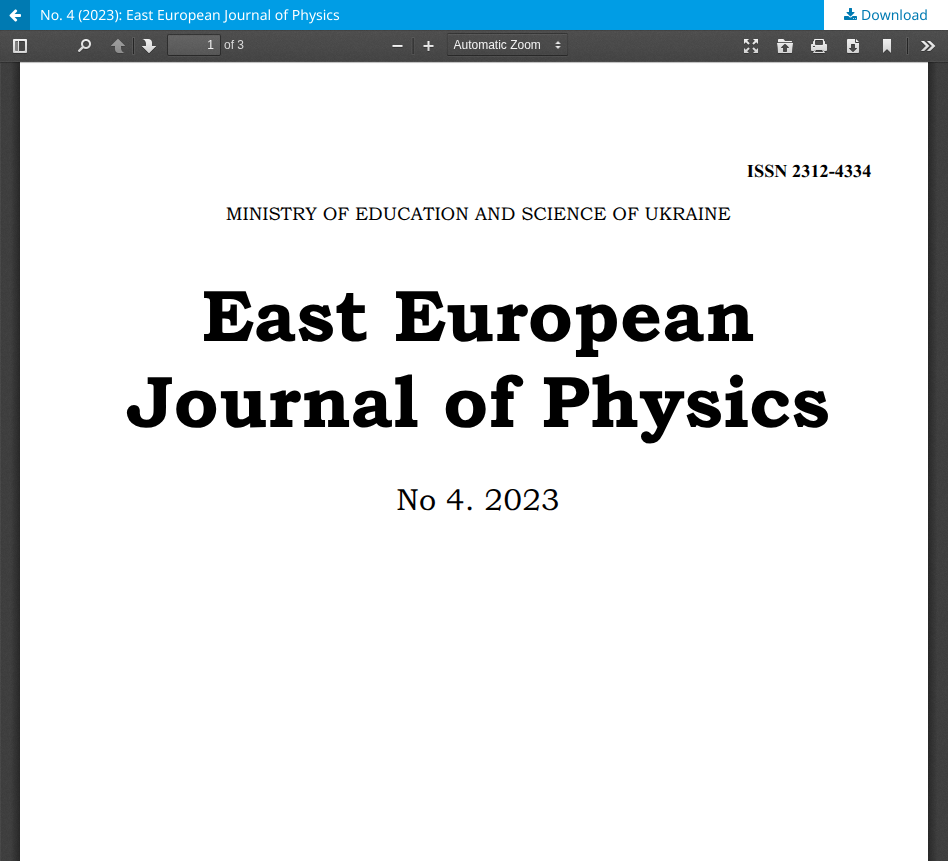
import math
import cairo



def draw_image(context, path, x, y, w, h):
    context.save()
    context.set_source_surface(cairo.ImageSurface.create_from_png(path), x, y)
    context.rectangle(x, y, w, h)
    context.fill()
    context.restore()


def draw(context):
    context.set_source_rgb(1, 1, 1)
    context.paint()
    context.set_source_rgb(0, 157 / 255, 229 / 255)
    context.rectangle(30, 0, 794, 30)
    context.fill()
    context.set_source_rgb(0, 122 / 255, 178 / 255)
    context.rectangle(0, 0, 30, 30)
    context.fill()
    draw_image(context, "images/1.png", 9, 9, 12, 13)
    draw_image(context, "images/2.png", 844, 8, 13, 12)
    draw_image(context, "images/3.png", 0, 30, 948, 831)
    context.select_font_face("Noto Sans")
    context.set_font_size(14)
    context.set_source_rgb(1, 1, 1)
    context.move_to(40, 20)
    context.show_text("No. 4 (2023): East European Journal of Physics")
    context.set_source_rgb(0, 122 / 255, 178 / 255)
    context.move_to(861, 20)
    context.show_text("Download")


surface = cairo.ImageSurface(cairo.Format.RGB24, 948, 861)
context = cairo.Context(surface)
options = cairo.FontOptions()
options.set_hint_metrics(cairo.HintMetrics.OFF)
options.set_hint_style(cairo.HintStyle.NONE)
context.set_font_options(options)
context.set_miter_limit(4)
draw(context)
surface.write_to_png("out.png")
